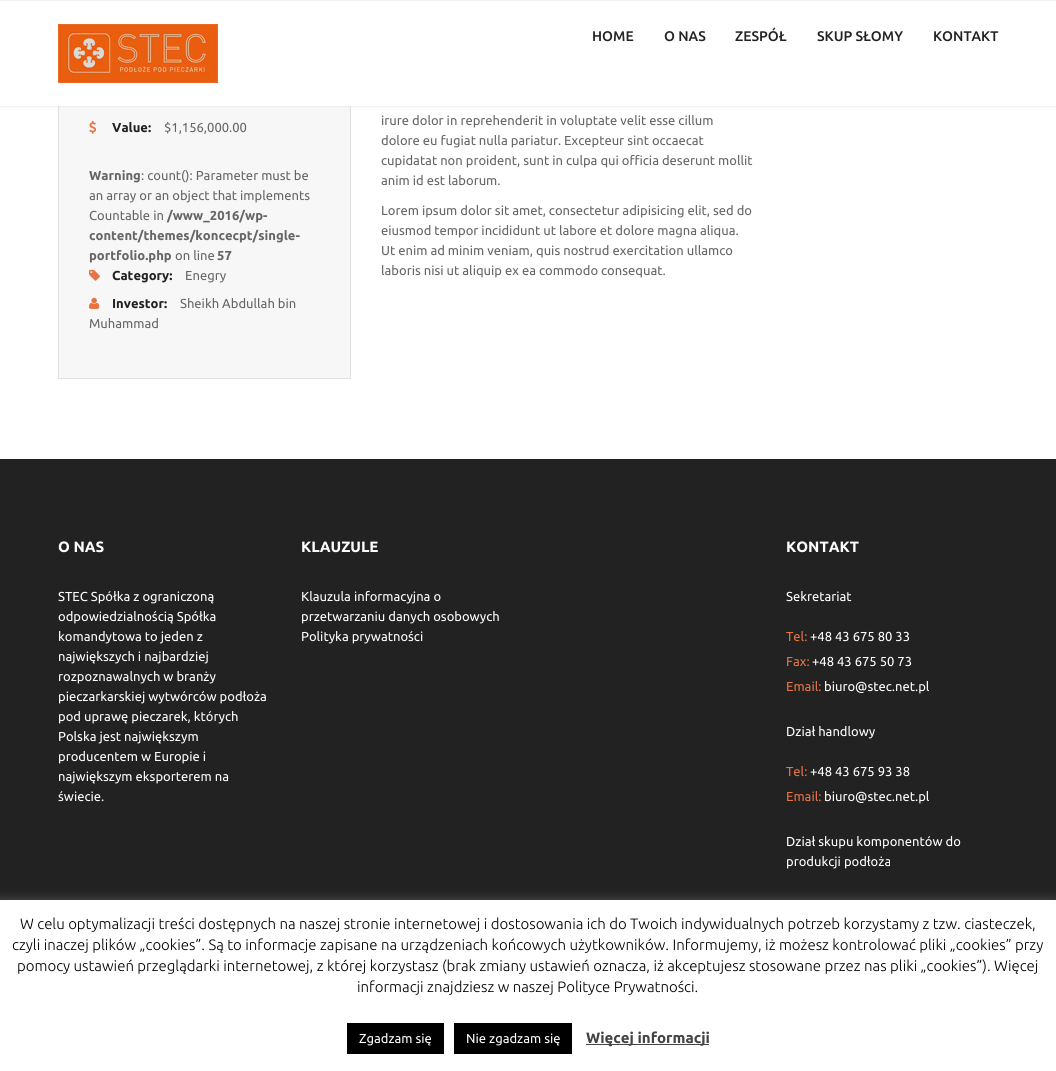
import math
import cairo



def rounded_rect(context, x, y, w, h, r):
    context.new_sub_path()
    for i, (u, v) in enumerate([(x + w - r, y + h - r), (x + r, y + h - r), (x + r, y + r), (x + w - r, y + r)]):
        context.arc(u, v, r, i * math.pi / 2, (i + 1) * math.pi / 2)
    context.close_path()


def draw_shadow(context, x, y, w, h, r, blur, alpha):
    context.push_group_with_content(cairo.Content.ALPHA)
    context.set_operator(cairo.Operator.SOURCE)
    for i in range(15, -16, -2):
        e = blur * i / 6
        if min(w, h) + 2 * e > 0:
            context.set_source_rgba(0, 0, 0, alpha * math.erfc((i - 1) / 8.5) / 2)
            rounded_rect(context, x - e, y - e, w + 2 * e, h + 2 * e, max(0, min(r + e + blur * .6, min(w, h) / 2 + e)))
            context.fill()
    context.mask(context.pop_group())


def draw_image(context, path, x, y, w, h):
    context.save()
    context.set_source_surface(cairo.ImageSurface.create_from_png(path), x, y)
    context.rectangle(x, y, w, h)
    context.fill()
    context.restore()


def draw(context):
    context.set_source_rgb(1, 1, 1)
    context.paint()
    context.set_source_rgb(247 / 255, 247 / 255, 247 / 255)
    context.rectangle(59, 106, 291, 272)
    context.fill()
    context.rectangle(58.5, -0.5, 292, 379)
    context.set_source_rgb(225 / 255, 225 / 255, 225 / 255)
    context.set_line_width(1)
    context.stroke()
    context.set_source_rgb(221 / 255, 221 / 255, 221 / 255)
    draw_shadow(context, 0, 0, 1056, 106, 0, 1, 1)
    context.set_source_rgb(1, 1, 1)
    context.rectangle(0, 1, 1056, 105)
    context.fill()
    context.set_source_rgb(240 / 255, 240 / 255, 240 / 255)
    context.rectangle(0, 0, 1056, 1)
    context.fill()
    draw_image(context, "images/1.png", 58, 24, 160, 59)
    draw_image(context, "images/2.png", 89, 120, 8, 14)
    draw_image(context, "images/3.png", 89, 269, 11, 12)
    draw_image(context, "images/4.png", 89, 297, 11, 12)
    context.set_source_rgb(34 / 255, 34 / 255, 34 / 255)
    context.rectangle(0, 459, 1056, 441)
    context.fill()
    context.set_source_rgb(172 / 255, 171 / 255, 171 / 255)
    draw_shadow(context, 0, 899, 1056, 171, 0, 5, 0.3)
    context.set_source_rgb(1, 1, 1)
    context.rectangle(0, 900, 1056, 171)
    context.fill()
    context.set_source_rgb(0, 0, 0)
    context.rectangle(347, 1023, 97, 31)
    context.fill()
    context.rectangle(454, 1023, 118, 31)
    context.fill()
    context.set_source_rgb(68 / 255, 68 / 255, 68 / 255)
    context.rectangle(586, 1044, 123, 1)
    context.fill()
    context.select_font_face("Ubuntu Medium")
    context.set_font_size(14)
    context.set_source_rgb(34 / 255, 34 / 255, 34 / 255)
    context.move_to(592, 41)
    context.show_text("HOME")
    context.move_to(664, 41)
    context.show_text("O NAS")
    context.move_to(735, 41)
    context.show_text("ZESPÓŁ")
    context.move_to(817, 41)
    context.show_text("SKUP SŁOMY")
    context.move_to(933, 41)
    context.show_text("KONTAKT")
    context.select_font_face("Ubuntu", cairo.FontSlant.NORMAL, cairo.FontWeight.BOLD)
    context.set_font_size(13)
    context.move_to(112, 132)
    context.show_text("Value:")
    context.select_font_face("Ubuntu")
    context.set_source_rgb(102 / 255, 102 / 255, 102 / 255)
    context.move_to(164, 132)
    context.show_text("$1,156,000.00")
    context.select_font_face("Ubuntu", cairo.FontSlant.NORMAL, cairo.FontWeight.BOLD)
    context.move_to(89, 180)
    context.show_text("Warning")
    context.select_font_face("Ubuntu")
    context.move_to(141, 180)
    context.show_text(": count(): Parameter must be")
    context.move_to(89, 200)
    context.show_text("an array or an object that implements")
    context.move_to(89, 220)
    context.show_text("Countable in")
    context.select_font_face("Ubuntu", cairo.FontSlant.NORMAL, cairo.FontWeight.BOLD)
    context.move_to(167, 220)
    context.show_text("/www_2016/wp-")
    context.move_to(89, 240)
    context.show_text("content/themes/koncecpt/single-")
    context.move_to(89, 260)
    context.show_text("portfolio.php")
    context.select_font_face("Ubuntu")
    context.move_to(175, 260)
    context.show_text("on line")
    context.select_font_face("Ubuntu", cairo.FontSlant.NORMAL, cairo.FontWeight.BOLD)
    context.move_to(217, 260)
    context.show_text("57")
    context.set_source_rgb(34 / 255, 34 / 255, 34 / 255)
    context.move_to(112, 280)
    context.show_text("Category:")
    context.select_font_face("Ubuntu")
    context.set_source_rgb(102 / 255, 102 / 255, 102 / 255)
    context.move_to(185, 280)
    context.show_text("Enegry")
    context.select_font_face("Ubuntu", cairo.FontSlant.NORMAL, cairo.FontWeight.BOLD)
    context.set_source_rgb(34 / 255, 34 / 255, 34 / 255)
    context.move_to(112, 308)
    context.show_text("Investor:")
    context.select_font_face("Ubuntu")
    context.set_source_rgb(102 / 255, 102 / 255, 102 / 255)
    context.move_to(180, 308)
    context.show_text("Sheikh Abdullah bin")
    context.move_to(89, 328)
    context.show_text("Muhammad")
    context.move_to(381, 125)
    context.show_text("irure dolor in reprehenderit in voluptate velit esse cillum")
    context.move_to(381, 145)
    context.show_text("dolore eu fugiat nulla pariatur. Excepteur sint occaecat")
    context.move_to(381, 165)
    context.show_text("cupidatat non proident, sunt in culpa qui officia deserunt mollit")
    context.move_to(381, 185)
    context.show_text("anim id est laborum.")
    context.move_to(381, 215)
    context.show_text("Lorem ipsum dolor sit amet, consectetur adipisicing elit, sed do")
    context.move_to(381, 235)
    context.show_text("eiusmod tempor incididunt ut labore et dolore magna aliqua.")
    context.move_to(381, 255)
    context.show_text("Ut enim ad minim veniam, quis nostrud exercitation ullamco")
    context.move_to(381, 275)
    context.show_text("laboris nisi ut aliquip ex ea commodo consequat.")
    context.select_font_face("Ubuntu", cairo.FontSlant.NORMAL, cairo.FontWeight.BOLD)
    context.set_font_size(15)
    context.set_source_rgb(1, 1, 1)
    context.move_to(58, 552)
    context.show_text("O NAS")
    context.select_font_face("Ubuntu")
    context.set_font_size(13)
    context.move_to(58, 601)
    context.show_text("STEC Spółka z ograniczoną")
    context.move_to(58, 621)
    context.show_text("odpowiedzialnością Spółka")
    context.move_to(58, 641)
    context.show_text("komandytowa to jeden z")
    context.move_to(58, 661)
    context.show_text("największych i najbardziej")
    context.move_to(58, 681)
    context.show_text("rozpoznawalnych w branży")
    context.move_to(58, 701)
    context.show_text("pieczarkarskiej wytwórców podłoża")
    context.move_to(58, 721)
    context.show_text("pod uprawę pieczarek, których")
    context.move_to(58, 741)
    context.show_text("Polska jest największym")
    context.move_to(58, 761)
    context.show_text("producentem w Europie i")
    context.move_to(58, 781)
    context.show_text("największym eksporterem na")
    context.move_to(58, 801)
    context.show_text("świecie.")
    context.select_font_face("Ubuntu", cairo.FontSlant.NORMAL, cairo.FontWeight.BOLD)
    context.set_font_size(15)
    context.move_to(301, 552)
    context.show_text("KLAUZULE")
    context.select_font_face("Ubuntu")
    context.set_font_size(13)
    context.move_to(301, 601)
    context.show_text("Klauzula informacyjna o")
    context.move_to(301, 621)
    context.show_text("przetwarzaniu danych osobowych")
    context.move_to(301, 641)
    context.show_text("Polityka prywatności")
    context.select_font_face("Ubuntu", cairo.FontSlant.NORMAL, cairo.FontWeight.BOLD)
    context.set_font_size(15)
    context.move_to(786, 552)
    context.show_text("KONTAKT")
    context.select_font_face("Ubuntu")
    context.set_font_size(13)
    context.move_to(786, 601)
    context.show_text("Sekretariat")
    context.set_source_rgb(232 / 255, 115 / 255, 69 / 255)
    context.move_to(786, 641)
    context.show_text("Tel:")
    context.set_source_rgb(1, 1, 1)
    context.move_to(810, 641)
    context.show_text("+48 43 675 80 33")
    context.set_source_rgb(232 / 255, 115 / 255, 69 / 255)
    context.move_to(786, 666)
    context.show_text("Fax:")
    context.set_source_rgb(1, 1, 1)
    context.move_to(812, 666)
    context.show_text("+48 43 675 50 73")
    context.set_source_rgb(232 / 255, 115 / 255, 69 / 255)
    context.move_to(786, 691)
    context.show_text("Email:")
    context.set_source_rgb(1, 1, 1)
    context.move_to(824, 691)
    context.show_text("biuro@stec.net.pl")
    context.move_to(786, 736)
    context.show_text("Dział handlowy")
    context.set_source_rgb(232 / 255, 115 / 255, 69 / 255)
    context.move_to(786, 776)
    context.show_text("Tel:")
    context.set_source_rgb(1, 1, 1)
    context.move_to(810, 776)
    context.show_text("+48 43 675 93 38")
    context.set_source_rgb(232 / 255, 115 / 255, 69 / 255)
    context.move_to(786, 801)
    context.show_text("Email:")
    context.set_source_rgb(1, 1, 1)
    context.move_to(824, 801)
    context.show_text("biuro@stec.net.pl")
    context.move_to(786, 846)
    context.show_text("Dział skupu komponentów do")
    context.move_to(786, 866)
    context.show_text("produkcji podłoża")
    context.select_font_face("Ubuntu Light")
    context.set_font_size(15)
    context.set_source_rgb(0, 0, 0)
    context.move_to(20, 929)
    context.show_text("W celu optymalizacji treści dostępnych na naszej stronie internetowej i dostosowania ich do Twoich indywidualnych potrzeb korzystamy z tzw. ciasteczek,")
    context.move_to(12, 950)
    context.show_text("czyli inaczej plików „cookies”. Są to informacje zapisane na urządzeniach końcowych użytkowników. Informujemy, iż możesz kontrolować pliki „cookies” przy")
    context.move_to(17, 971)
    context.show_text("pomocy ustawień przeglądarki internetowej, z której korzystasz (brak zmiany ustawień oznacza, iż akceptujesz stosowane przez nas pliki „cookies”). Więcej")
    context.move_to(357, 992)
    context.show_text("informacji znajdziesz w naszej Polityce Prywatności.")
    context.select_font_face("Ubuntu")
    context.set_font_size(13)
    context.set_source_rgb(1, 1, 1)
    context.move_to(359, 1043)
    context.show_text("Zgadzam się")
    context.move_to(466, 1043)
    context.show_text("Nie zgadzam się")
    context.select_font_face("Ubuntu", cairo.FontSlant.NORMAL, cairo.FontWeight.BOLD)
    context.set_font_size(15)
    context.set_source_rgb(68 / 255, 68 / 255, 68 / 255)
    context.move_to(586, 1043)
    context.show_text("Więcej informacji")


surface = cairo.ImageSurface(cairo.Format.RGB24, 1056, 1071)
context = cairo.Context(surface)
options = cairo.FontOptions()
options.set_hint_metrics(cairo.HintMetrics.OFF)
options.set_hint_style(cairo.HintStyle.NONE)
context.set_font_options(options)
context.set_miter_limit(4)
draw(context)
surface.write_to_png("out.png")
